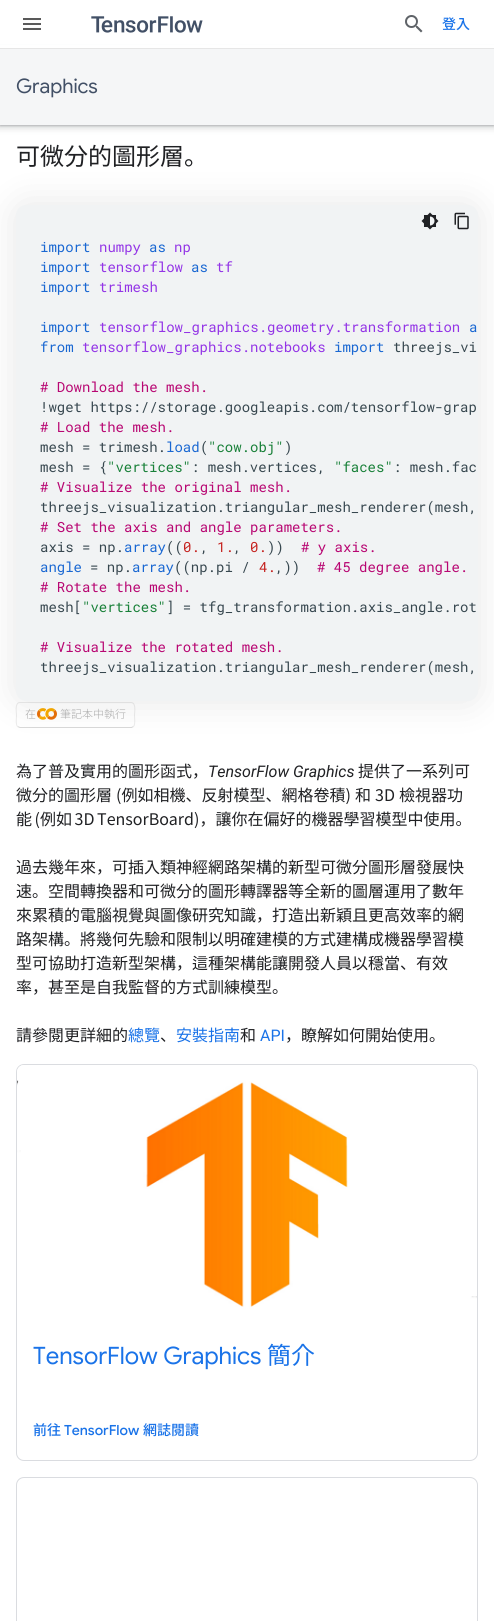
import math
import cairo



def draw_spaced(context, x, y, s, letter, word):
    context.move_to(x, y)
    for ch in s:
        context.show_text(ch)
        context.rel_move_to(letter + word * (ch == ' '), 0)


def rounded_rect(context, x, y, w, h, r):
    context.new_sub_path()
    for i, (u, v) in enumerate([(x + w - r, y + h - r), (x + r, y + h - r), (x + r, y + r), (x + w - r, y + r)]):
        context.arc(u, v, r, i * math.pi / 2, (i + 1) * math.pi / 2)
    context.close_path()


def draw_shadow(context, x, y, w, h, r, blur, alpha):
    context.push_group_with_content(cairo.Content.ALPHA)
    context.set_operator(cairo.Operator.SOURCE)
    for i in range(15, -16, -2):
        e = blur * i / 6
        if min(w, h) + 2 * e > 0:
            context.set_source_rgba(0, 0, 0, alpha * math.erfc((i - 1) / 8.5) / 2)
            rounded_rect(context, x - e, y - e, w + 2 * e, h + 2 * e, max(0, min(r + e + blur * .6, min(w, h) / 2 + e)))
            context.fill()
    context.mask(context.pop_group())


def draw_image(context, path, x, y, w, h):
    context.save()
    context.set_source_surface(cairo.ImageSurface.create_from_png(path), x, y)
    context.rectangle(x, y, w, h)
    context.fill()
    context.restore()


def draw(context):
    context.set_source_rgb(1, 1, 1)
    context.paint()
    context.set_source_rgb(60 / 255, 64 / 255, 67 / 255)
    draw_shadow(context, -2, 49, 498, 80, 0, 3, 0.15)
    draw_shadow(context, 0, 50, 494, 76, 0, 1, 0.3)
    context.set_source_rgb(1, 1, 1)
    context.rectangle(0, 45, 494, 3)
    context.fill()
    context.set_source_rgb(230 / 255, 230 / 255, 230 / 255)
    context.rectangle(0, 48, 494, 1)
    context.fill()
    draw_image(context, "images/1.png", 23, 18, 18, 12)
    draw_image(context, "images/2.png", 91, 16, 112, 17)
    draw_image(context, "images/3.png", 405, 15, 18, 18)
    context.set_source_rgb(245 / 255, 246 / 255, 247 / 255)
    context.rectangle(0, 49, 494, 76)
    context.fill()
    context.new_path()
    context.move_to(133.5, 726.5)
    context.line_to(131.5, 727.5)
    context.line_to(38.5, 727.5)
    context.line_to(20, 727.5)
    context.line_to(17.5, 726.5)
    context.set_source_rgb(217 / 255, 217 / 255, 217 / 255)
    context.set_line_width(1)
    context.stroke()
    context.new_path()
    context.move_to(17.5, 726.5)
    context.curve_to(15.5, 724.5, 16.5, 717.5, 16.5, 715)
    context.curve_to(16.5, 712.5, 14.5, 702.5, 20, 702.5)
    context.line_to(131, 702.5)
    context.curve_to(136.5, 702.5, 134.5, 712.5, 134.5, 715)
    context.curve_to(134.5, 717.5, 135.5, 724.5, 133.5, 726.5)
    context.set_source_rgb(235 / 255, 235 / 255, 235 / 255)
    context.stroke()
    draw_image(context, "images/6.png", 37, 708, 20, 12)
    context.set_source_rgb(0, 0, 0)
    draw_shadow(context, 16, 205, 462, 496, 10, 18, 0.1)
    context.set_source_rgb(241 / 255, 243 / 255, 244 / 255)
    rounded_rect(context, 16, 205, 462, 496, 10)
    context.fill()
    draw_image(context, "images/4.png", 421, 212, 18, 18)
    draw_image(context, "images/5.png", 454, 212, 15, 18)
    rounded_rect(context, 16.5, 1064.5, 461, 396, 7.5)
    context.set_source_rgb(218 / 255, 220 / 255, 224 / 255)
    context.stroke()
    draw_image(context, "images/7.png", 17, 1065, 460, 259)
    rounded_rect(context, 16.5, 1477.5, 461, 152, 7.5)
    context.stroke()
    context.select_font_face("Noto Sans JP Medium")
    context.set_font_size(14)
    context.set_source_rgb(26 / 255, 115 / 255, 232 / 255)
    context.move_to(442, 29)
    context.show_text("登入")
    context.select_font_face("Google Sans")
    context.set_font_size(20)
    context.set_source_rgb(66 / 255, 80 / 255, 102 / 255)
    context.move_to(16, 93)
    context.show_text("Graphics")
    context.select_font_face("Noto Sans JP")
    context.set_font_size(24)
    context.set_source_rgb(32 / 255, 33 / 255, 36 / 255)
    context.move_to(16, 165)
    context.show_text("可微分的圖形層。")
    context.select_font_face("Roboto Mono")
    context.set_font_size(14)
    context.set_source_rgb(25 / 255, 103 / 255, 210 / 255)
    context.move_to(40, 252)
    context.show_text("import")
    context.set_source_rgb(147 / 255, 52 / 255, 230 / 255)
    context.move_to(99, 252)
    context.show_text("numpy")
    context.set_source_rgb(25 / 255, 103 / 255, 210 / 255)
    context.move_to(149, 252)
    context.show_text("as")
    context.set_source_rgb(147 / 255, 52 / 255, 230 / 255)
    context.move_to(174, 252)
    context.show_text("np")
    context.set_source_rgb(25 / 255, 103 / 255, 210 / 255)
    context.move_to(40, 272)
    context.show_text("import")
    context.set_source_rgb(147 / 255, 52 / 255, 230 / 255)
    context.move_to(99, 272)
    context.show_text("tensorflow")
    context.set_source_rgb(25 / 255, 103 / 255, 210 / 255)
    context.move_to(191, 272)
    context.show_text("as")
    context.set_source_rgb(147 / 255, 52 / 255, 230 / 255)
    context.move_to(216, 272)
    context.show_text("tf")
    context.set_source_rgb(25 / 255, 103 / 255, 210 / 255)
    context.move_to(40, 292)
    context.show_text("import")
    context.set_source_rgb(147 / 255, 52 / 255, 230 / 255)
    context.move_to(99, 292)
    context.show_text("trimesh")
    context.set_source_rgb(25 / 255, 103 / 255, 210 / 255)
    context.move_to(40, 332)
    context.show_text("import")
    context.set_source_rgb(147 / 255, 52 / 255, 230 / 255)
    context.move_to(99, 332)
    context.show_text("tensorflow_graphics.geometry.transformation")
    context.set_source_rgb(25 / 255, 103 / 255, 210 / 255)
    context.move_to(469, 332)
    context.show_text("a")
    context.move_to(40, 352)
    context.show_text("from")
    context.set_source_rgb(147 / 255, 52 / 255, 230 / 255)
    context.move_to(82, 352)
    context.show_text("tensorflow_graphics.notebooks")
    context.set_source_rgb(25 / 255, 103 / 255, 210 / 255)
    context.move_to(334, 352)
    context.show_text("import")
    context.set_source_rgb(55 / 255, 71 / 255, 79 / 255)
    context.move_to(393, 352)
    context.show_text("threejs_vi")
    context.set_source_rgb(184 / 255, 6 / 255, 114 / 255)
    context.move_to(40, 392)
    context.show_text("# Download the mesh.")
    context.set_source_rgb(55 / 255, 71 / 255, 79 / 255)
    context.move_to(40, 412)
    context.show_text("!wget https://storage.googleapis.com/tensorflow-grap")
    context.set_source_rgb(184 / 255, 6 / 255, 114 / 255)
    context.move_to(40, 432)
    context.show_text("# Load the mesh.")
    context.set_source_rgb(55 / 255, 71 / 255, 79 / 255)
    context.move_to(40, 452)
    context.show_text("mesh = trimesh.")
    context.set_source_rgb(25 / 255, 103 / 255, 210 / 255)
    context.move_to(166, 452)
    context.show_text("load")
    context.set_source_rgb(55 / 255, 71 / 255, 79 / 255)
    context.move_to(200, 452)
    context.show_text("(")
    context.set_source_rgb(24 / 255, 128 / 255, 56 / 255)
    context.move_to(208, 452)
    context.show_text("\"cow.obj\"")
    context.set_source_rgb(55 / 255, 71 / 255, 79 / 255)
    context.move_to(284, 452)
    context.show_text(")")
    context.move_to(40, 472)
    context.show_text("mesh = {")
    context.set_source_rgb(24 / 255, 128 / 255, 56 / 255)
    context.move_to(107, 472)
    context.show_text("\"vertices\"")
    context.set_source_rgb(55 / 255, 71 / 255, 79 / 255)
    context.move_to(191, 472)
    context.show_text(": mesh.vertices,")
    context.set_source_rgb(24 / 255, 128 / 255, 56 / 255)
    context.move_to(334, 472)
    context.show_text("\"faces\"")
    context.set_source_rgb(55 / 255, 71 / 255, 79 / 255)
    context.move_to(393, 472)
    context.show_text(": mesh.fac")
    context.set_source_rgb(184 / 255, 6 / 255, 114 / 255)
    context.move_to(40, 492)
    context.show_text("# Visualize the original mesh.")
    context.set_source_rgb(55 / 255, 71 / 255, 79 / 255)
    context.move_to(40, 512)
    context.show_text("threejs_visualization.triangular_mesh_renderer(mesh,")
    context.set_source_rgb(184 / 255, 6 / 255, 114 / 255)
    context.move_to(40, 532)
    context.show_text("# Set the axis and angle parameters.")
    context.set_source_rgb(55 / 255, 71 / 255, 79 / 255)
    context.move_to(40, 552)
    context.show_text("axis = np.")
    context.set_source_rgb(25 / 255, 103 / 255, 210 / 255)
    context.move_to(124, 552)
    context.show_text("array")
    context.set_source_rgb(55 / 255, 71 / 255, 79 / 255)
    context.move_to(166, 552)
    context.show_text("((")
    context.set_source_rgb(197 / 255, 34 / 255, 31 / 255)
    context.move_to(183, 552)
    context.show_text("0.")
    context.set_source_rgb(55 / 255, 71 / 255, 79 / 255)
    context.move_to(200, 552)
    context.show_text(",")
    context.set_source_rgb(197 / 255, 34 / 255, 31 / 255)
    context.move_to(217, 552)
    context.show_text("1.")
    context.set_source_rgb(55 / 255, 71 / 255, 79 / 255)
    context.move_to(233, 552)
    context.show_text(",")
    context.set_source_rgb(197 / 255, 34 / 255, 31 / 255)
    context.move_to(250, 552)
    context.show_text("0.")
    context.set_source_rgb(55 / 255, 71 / 255, 79 / 255)
    context.move_to(267, 552)
    context.show_text("))")
    context.set_source_rgb(184 / 255, 6 / 255, 114 / 255)
    context.move_to(301, 552)
    context.show_text("# y axis.")
    context.set_source_rgb(25 / 255, 103 / 255, 210 / 255)
    context.move_to(40, 572)
    context.show_text("angle")
    context.set_source_rgb(55 / 255, 71 / 255, 79 / 255)
    context.move_to(90, 572)
    context.show_text("= np.")
    context.set_source_rgb(25 / 255, 103 / 255, 210 / 255)
    context.move_to(132, 572)
    context.show_text("array")
    context.set_source_rgb(55 / 255, 71 / 255, 79 / 255)
    context.move_to(174, 572)
    context.show_text("((np.pi /")
    context.set_source_rgb(197 / 255, 34 / 255, 31 / 255)
    context.move_to(259, 572)
    context.show_text("4.")
    context.set_source_rgb(55 / 255, 71 / 255, 79 / 255)
    context.move_to(275, 572)
    context.show_text(",))")
    context.set_source_rgb(184 / 255, 6 / 255, 114 / 255)
    context.move_to(317, 572)
    context.show_text("# 45 degree angle.")
    context.move_to(40, 592)
    context.show_text("# Rotate the mesh.")
    context.set_source_rgb(55 / 255, 71 / 255, 79 / 255)
    context.move_to(40, 612)
    context.show_text("mesh[")
    context.set_source_rgb(24 / 255, 128 / 255, 56 / 255)
    context.move_to(82, 612)
    context.show_text("\"vertices\"")
    context.set_source_rgb(55 / 255, 71 / 255, 79 / 255)
    context.move_to(166, 612)
    context.show_text("] = tfg_transformation.axis_angle.rot")
    context.set_source_rgb(184 / 255, 6 / 255, 114 / 255)
    context.move_to(40, 652)
    context.show_text("# Visualize the rotated mesh.")
    context.set_source_rgb(55 / 255, 71 / 255, 79 / 255)
    context.move_to(40, 672)
    context.show_text("threejs_visualization.triangular_mesh_renderer(mesh,")
    context.select_font_face("Noto Sans JP Light")
    context.set_font_size(11)
    context.set_source_rgb(170 / 255, 170 / 255, 170 / 255)
    context.move_to(25, 718)
    context.show_text("在")
    context.move_to(60, 718)
    context.show_text("筆記本中執行")
    context.select_font_face("Noto Sans JP")
    context.set_font_size(16)
    context.set_source_rgb(32 / 255, 33 / 255, 36 / 255)
    context.move_to(16, 777)
    context.show_text("為了普及實用的圖形函式，")
    context.select_font_face("Roboto", cairo.FontSlant.ITALIC)
    context.move_to(208, 777)
    context.show_text("TensorFlow Graphics")
    context.select_font_face("Noto Sans JP")
    context.move_to(358, 777)
    context.show_text("提供了一系列可")
    draw_spaced(context, 16, 801, "微分的圖形層 (例如相機、反射模型、網格卷積) 和 3D 檢視器功", 0, 0.5)
    draw_spaced(context, 16, 825, "能 (例如 3D TensorBoard)，讓你在偏好的機器學習模型中使用。", 0, -1)
    context.move_to(16, 873)
    context.show_text("過去幾年來，可插入類神經網路架構的新型可微分圖形層發展快")
    context.move_to(16, 897)
    context.show_text("速。空間轉換器和可微分的圖形轉譯器等全新的圖層運用了數年")
    context.move_to(16, 921)
    context.show_text("來累積的電腦視覺與圖像研究知識，打造出新穎且更高效率的網")
    context.move_to(16, 945)
    context.show_text("路架構。將幾何先驗和限制以明確建模的方式建構成機器學習模")
    context.move_to(16, 969)
    context.show_text("型可協助打造新型架構，這種架構能讓開發人員以穩當、有效")
    context.move_to(16, 993)
    context.show_text("率，甚至是自我監督的方式訓練模型。")
    context.move_to(16, 1041)
    context.show_text("請參閱更詳細的")
    context.set_source_rgb(26 / 255, 115 / 255, 232 / 255)
    context.move_to(128, 1041)
    context.show_text("總覽")
    context.set_source_rgb(32 / 255, 33 / 255, 36 / 255)
    context.move_to(160, 1041)
    context.show_text("、")
    context.set_source_rgb(26 / 255, 115 / 255, 232 / 255)
    context.move_to(176, 1041)
    context.show_text("安裝指南")
    context.set_source_rgb(32 / 255, 33 / 255, 36 / 255)
    context.move_to(240, 1041)
    context.show_text("和")
    context.select_font_face("Roboto")
    context.set_source_rgb(26 / 255, 115 / 255, 232 / 255)
    context.move_to(260, 1041)
    context.show_text("API")
    context.select_font_face("Noto Sans JP")
    context.set_source_rgb(32 / 255, 33 / 255, 36 / 255)
    context.move_to(285, 1041)
    context.show_text("，瞭解如何開始使用。")
    context.select_font_face("Google Sans")
    context.set_font_size(24)
    context.set_source_rgb(26 / 255, 115 / 255, 232 / 255)
    context.move_to(33, 1364)
    context.show_text("TensorFlow Graphics")
    context.select_font_face("Noto Sans JP")
    context.move_to(267, 1364)
    context.show_text("簡介")
    context.select_font_face("Noto Sans JP Medium")
    context.set_font_size(14)
    context.move_to(33, 1435)
    context.show_text("前往")
    context.select_font_face("Google Sans Medium")
    context.move_to(64, 1435)
    context.show_text("TensorFlow")
    context.select_font_face("Noto Sans JP Medium")
    context.move_to(143, 1435)
    context.show_text("網誌閱讀")


surface = cairo.ImageSurface(cairo.Format.RGB24, 494, 1621)
context = cairo.Context(surface)
options = cairo.FontOptions()
options.set_hint_metrics(cairo.HintMetrics.OFF)
options.set_hint_style(cairo.HintStyle.NONE)
context.set_font_options(options)
context.set_miter_limit(4)
draw(context)
surface.write_to_png("out.png")
